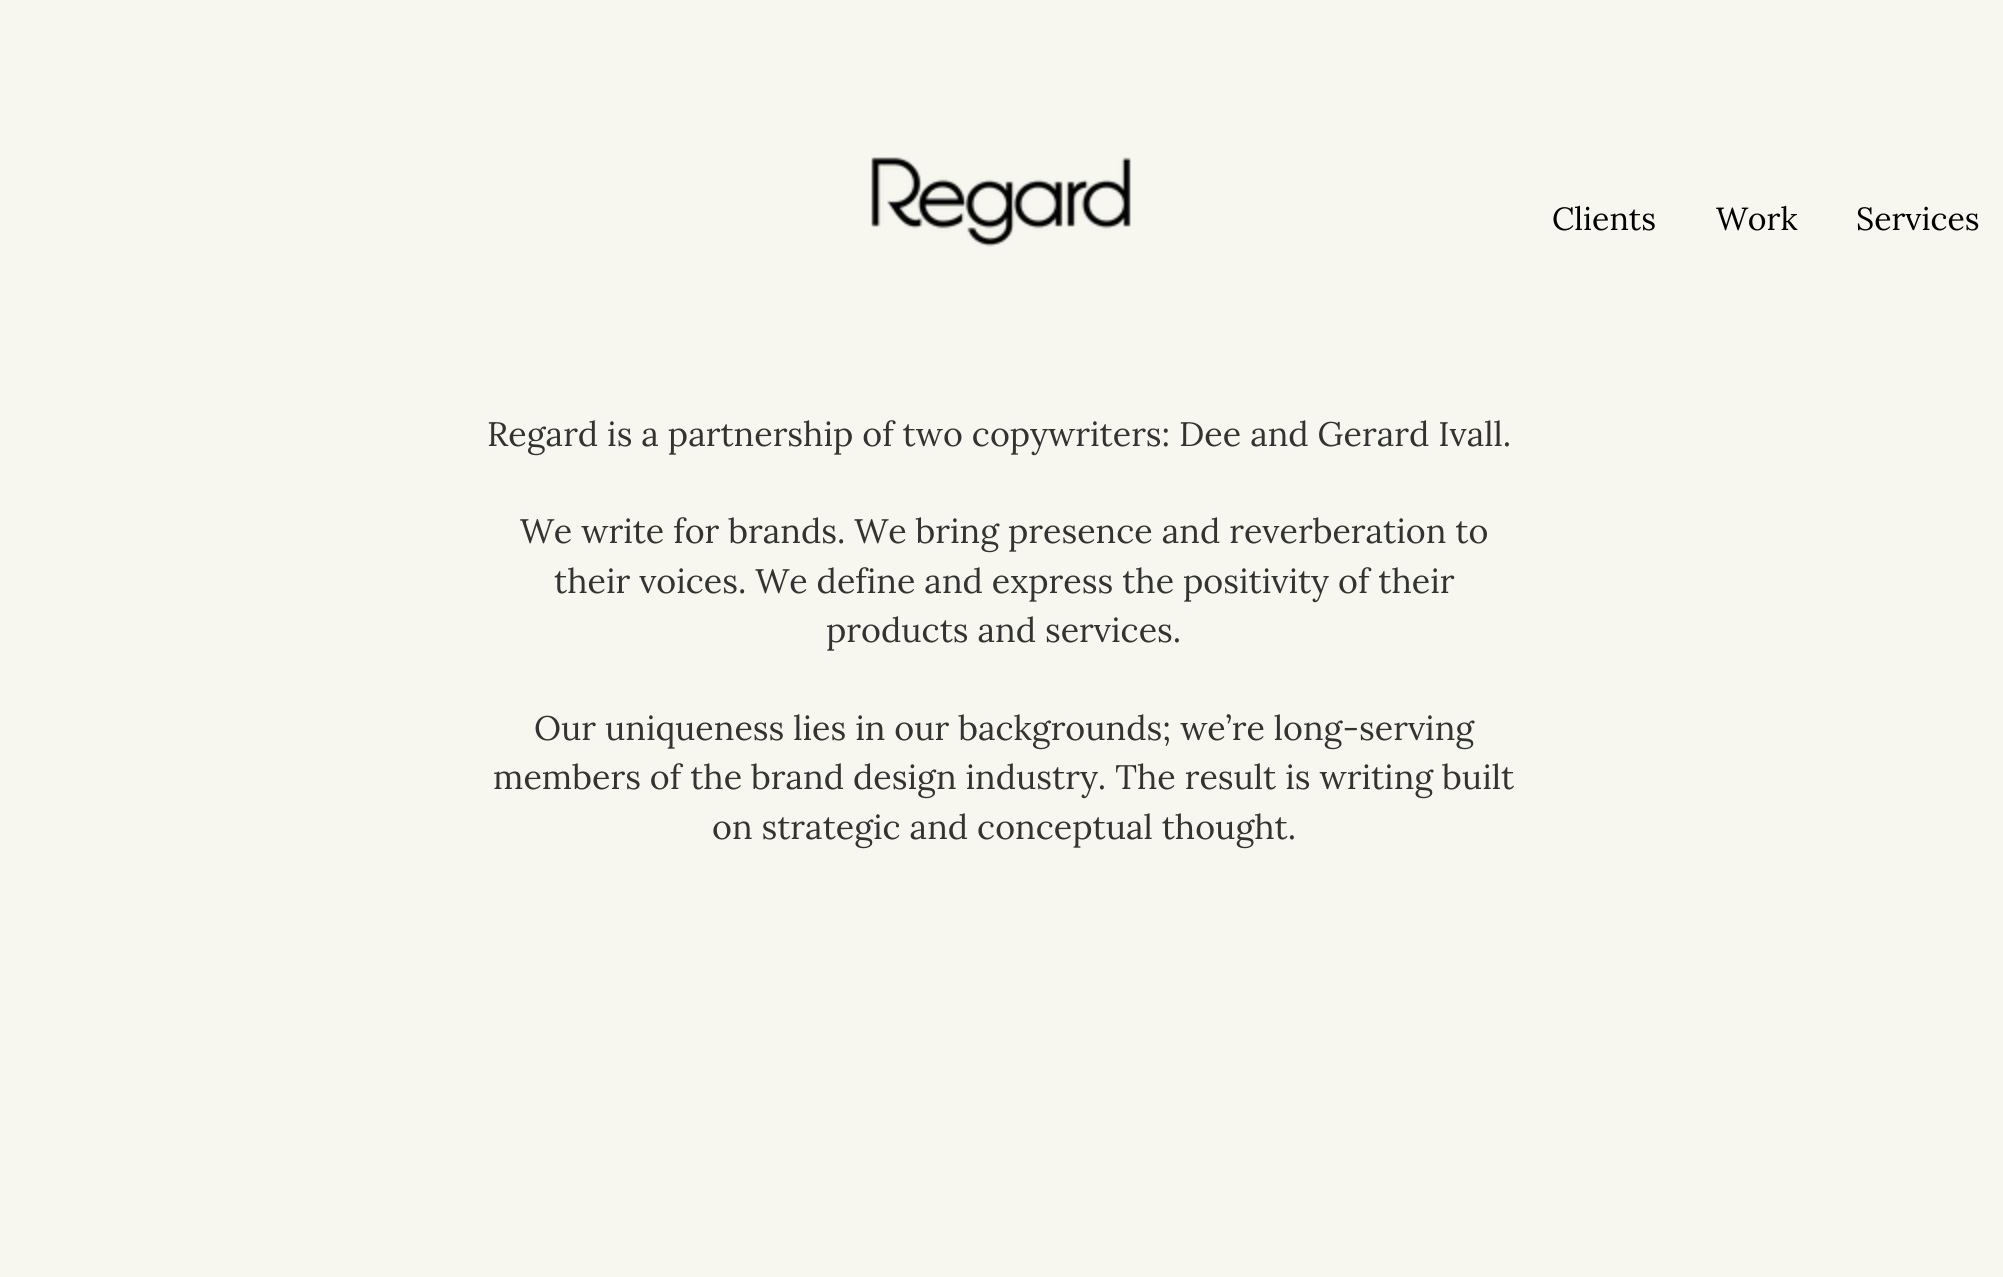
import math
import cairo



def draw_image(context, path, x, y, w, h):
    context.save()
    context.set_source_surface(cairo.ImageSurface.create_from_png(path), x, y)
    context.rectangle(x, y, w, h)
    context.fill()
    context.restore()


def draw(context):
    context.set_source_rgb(247 / 255, 247 / 255, 240 / 255)
    context.paint()
    draw_image(context, "images/1.png", 871, 157, 260, 90)
    context.select_font_face("Lora")
    context.set_font_size(32)
    context.set_source_rgb(0, 0, 0)
    context.move_to(1552, 230)
    context.show_text("Clients")
    context.move_to(1716, 230)
    context.show_text("Work")
    context.move_to(1856, 230)
    context.show_text("Services")
    context.set_font_size(34)
    context.set_source_rgb(51 / 255, 51 / 255, 51 / 255)
    context.move_to(487, 446)
    context.show_text("Regard is a partnership of two copywriters: Dee and Gerard Ivall.")
    context.move_to(520, 543)
    context.show_text("We write for brands. We bring presence and reverberation to")
    context.move_to(554, 593)
    context.show_text("their voices. We define and express the positivity of their")
    context.move_to(826, 642)
    context.show_text("products and services.")
    context.move_to(534, 740)
    context.show_text("Our uniqueness lies in our backgrounds; we’re long-serving")
    context.move_to(493, 789)
    context.show_text("members of the brand design industry. The result is writing built")
    context.move_to(712, 839)
    context.show_text("on strategic and conceptual thought.")


surface = cairo.ImageSurface(cairo.Format.RGB24, 2003, 1277)
context = cairo.Context(surface)
options = cairo.FontOptions()
options.set_hint_metrics(cairo.HintMetrics.OFF)
options.set_hint_style(cairo.HintStyle.NONE)
context.set_font_options(options)
context.set_miter_limit(4)
draw(context)
surface.write_to_png("out.png")
